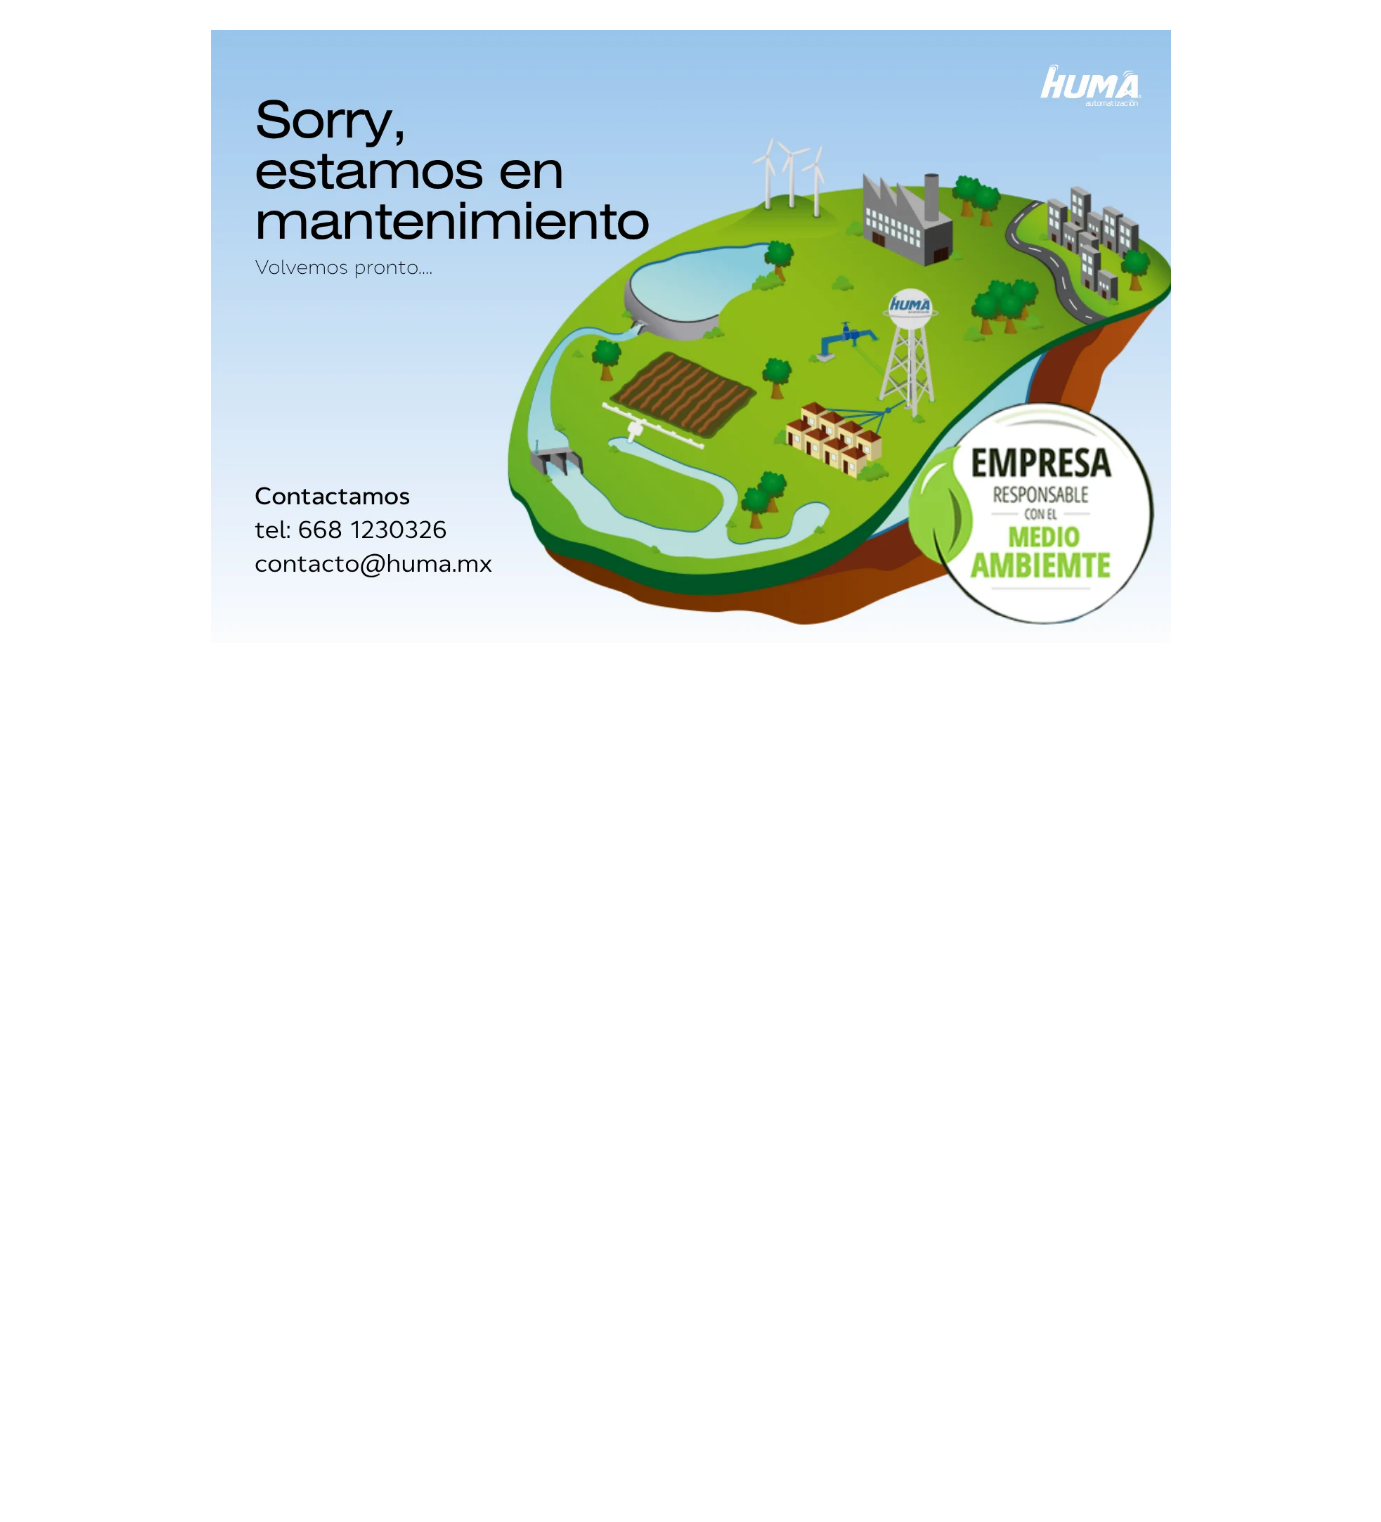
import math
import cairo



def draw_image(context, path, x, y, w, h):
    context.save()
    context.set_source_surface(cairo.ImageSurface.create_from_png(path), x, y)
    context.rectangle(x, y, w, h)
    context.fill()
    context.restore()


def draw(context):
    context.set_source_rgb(1, 1, 1)
    context.paint()
    draw_image(context, "images/1.png", 211, 30, 960, 613)


surface = cairo.ImageSurface(cairo.Format.RGB24, 1381, 1522)
context = cairo.Context(surface)
options = cairo.FontOptions()
options.set_hint_metrics(cairo.HintMetrics.OFF)
options.set_hint_style(cairo.HintStyle.NONE)
context.set_font_options(options)
context.set_miter_limit(4)
draw(context)
surface.write_to_png("out.png")
